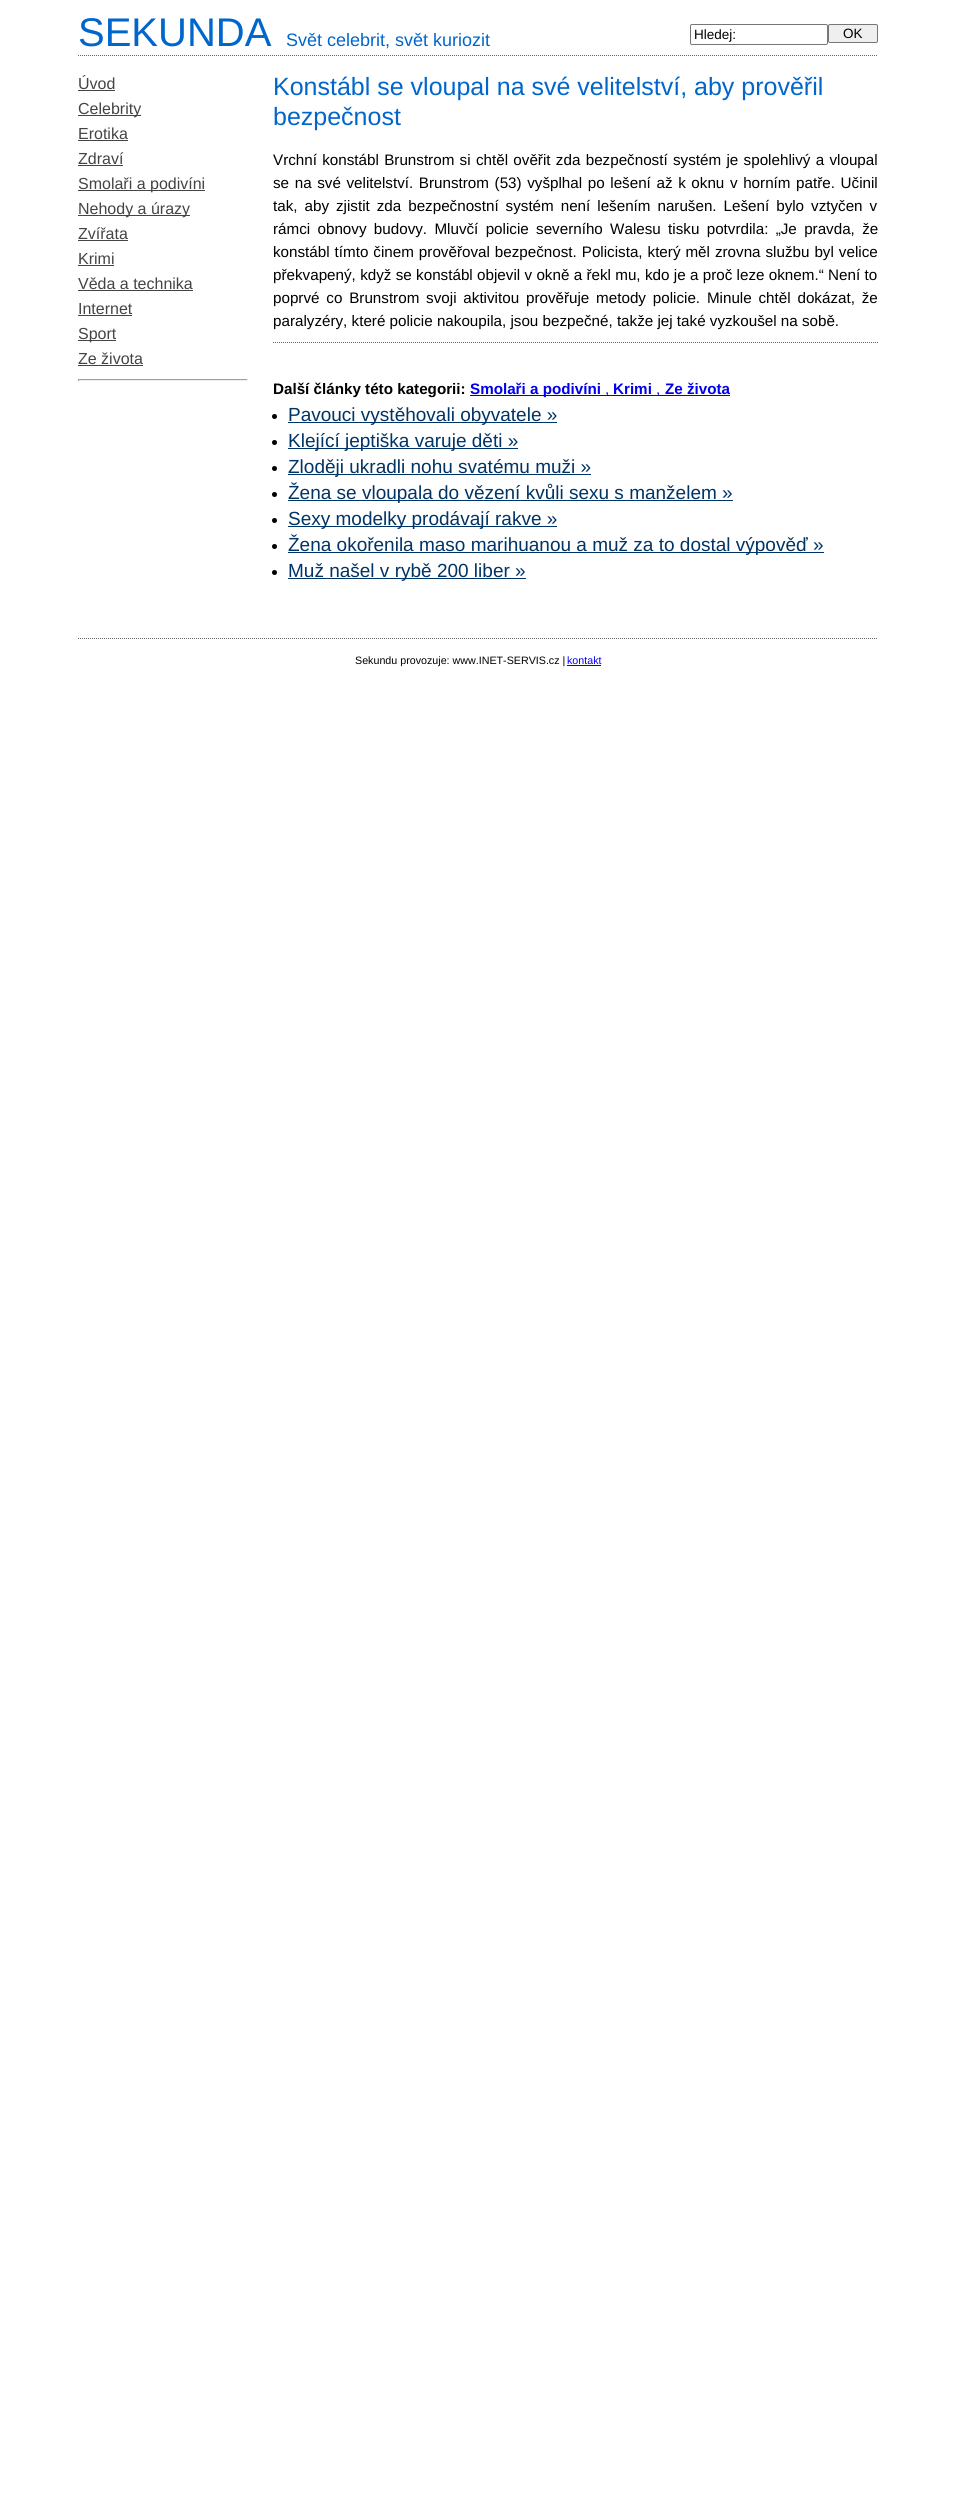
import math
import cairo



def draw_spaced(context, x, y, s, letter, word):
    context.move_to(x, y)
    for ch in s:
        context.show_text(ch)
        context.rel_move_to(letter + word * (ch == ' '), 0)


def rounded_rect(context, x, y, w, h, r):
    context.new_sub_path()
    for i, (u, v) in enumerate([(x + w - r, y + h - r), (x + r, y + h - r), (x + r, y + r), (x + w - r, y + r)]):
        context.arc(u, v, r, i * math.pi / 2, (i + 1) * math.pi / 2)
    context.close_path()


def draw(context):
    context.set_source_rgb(1, 1, 1)
    context.paint()
    context.new_path()
    context.move_to(78, 55.5)
    context.line_to(878, 55.5)
    context.set_source_rgb(102 / 255, 102 / 255, 102 / 255)
    context.set_line_width(1)
    context.set_dash([1, 1])
    context.stroke()
    rounded_rect(context, 690.5, 24.5, 137, 20, 1.5)
    context.set_source_rgb(118 / 255, 118 / 255, 118 / 255)
    context.set_dash([])
    context.stroke()
    context.set_source_rgb(239 / 255, 239 / 255, 239 / 255)
    rounded_rect(context, 828.5, 24.5, 49, 18, 1.5)
    context.fill_preserve()
    context.set_source_rgb(118 / 255, 118 / 255, 118 / 255)
    context.stroke()
    context.set_source_rgb(68 / 255, 68 / 255, 68 / 255)
    context.rectangle(78, 90, 37, 1)
    context.fill()
    context.rectangle(78, 115, 63, 1)
    context.fill()
    context.rectangle(78, 140, 50, 1)
    context.fill()
    context.rectangle(78, 165, 45, 1)
    context.fill()
    context.rectangle(78, 190, 127, 1)
    context.fill()
    context.rectangle(78, 215, 112, 1)
    context.fill()
    context.rectangle(78, 240, 50, 1)
    context.fill()
    context.rectangle(78, 265, 36, 1)
    context.fill()
    context.rectangle(78, 290, 115, 1)
    context.fill()
    context.rectangle(78, 315, 54, 1)
    context.fill()
    context.rectangle(78, 340, 38, 1)
    context.fill()
    context.rectangle(78, 365, 65, 1)
    context.fill()
    context.set_source_rgb(159 / 255, 159 / 255, 159 / 255)
    context.rectangle(78, 379, 170, 1)
    context.fill()
    context.set_source_rgb(238 / 255, 238 / 255, 238 / 255)
    context.rectangle(247, 379, 1, 2)
    context.fill()
    context.rectangle(78, 380, 170, 1)
    context.fill()
    context.set_source_rgb(159 / 255, 159 / 255, 159 / 255)
    context.rectangle(78, 379, 1, 2)
    context.fill()
    context.new_path()
    context.move_to(273, 342.5)
    context.line_to(878, 342.5)
    context.set_source_rgb(102 / 255, 102 / 255, 102 / 255)
    context.set_dash([1, 1])
    context.stroke()
    context.set_source_rgb(0, 0, 238 / 255)
    context.rectangle(470, 395, 260, 1)
    context.fill()
    context.set_source_rgb(0, 0, 0)
    context.arc(274.5, 416.5, 2.5, 0, 2 * math.pi)
    context.fill()
    context.set_source_rgb(0, 51 / 255, 102 / 255)
    context.rectangle(288, 422, 269, 1)
    context.fill()
    context.set_source_rgb(0, 0, 0)
    context.arc(274.5, 442.5, 2.5, 0, 2 * math.pi)
    context.fill()
    context.set_source_rgb(0, 51 / 255, 102 / 255)
    context.rectangle(288, 448, 230, 1)
    context.fill()
    context.set_source_rgb(0, 0, 0)
    context.arc(274.5, 468.5, 2.5, 0, 2 * math.pi)
    context.fill()
    context.set_source_rgb(0, 51 / 255, 102 / 255)
    context.rectangle(288, 474, 303, 1)
    context.fill()
    context.set_source_rgb(0, 0, 0)
    context.arc(274.5, 494.5, 2.5, 0, 2 * math.pi)
    context.fill()
    context.set_source_rgb(0, 51 / 255, 102 / 255)
    context.rectangle(288, 500, 445, 1)
    context.fill()
    context.set_source_rgb(0, 0, 0)
    context.arc(274.5, 520.5, 2.5, 0, 2 * math.pi)
    context.fill()
    context.set_source_rgb(0, 51 / 255, 102 / 255)
    context.rectangle(288, 526, 269, 1)
    context.fill()
    context.set_source_rgb(0, 0, 0)
    context.arc(274.5, 546.5, 2.5, 0, 2 * math.pi)
    context.fill()
    context.set_source_rgb(0, 51 / 255, 102 / 255)
    context.rectangle(288, 552, 536, 1)
    context.fill()
    context.set_source_rgb(0, 0, 0)
    context.arc(274.5, 572.5, 2.5, 0, 2 * math.pi)
    context.fill()
    context.set_source_rgb(0, 51 / 255, 102 / 255)
    context.rectangle(288, 578, 238, 1)
    context.fill()
    context.new_path()
    context.move_to(78, 638.5)
    context.line_to(878, 638.5)
    context.set_source_rgb(102 / 255, 102 / 255, 102 / 255)
    context.stroke()
    context.set_source_rgb(0, 0, 238 / 255)
    context.rectangle(567, 665, 34, 1)
    context.fill()
    context.select_font_face("Liberation Sans")
    context.set_font_size(40)
    context.set_source_rgb(0, 102 / 255, 204 / 255)
    context.move_to(78, 46)
    context.show_text("SEKUNDA")
    context.set_font_size(18)
    context.move_to(286, 46)
    context.show_text("Svět celebrit, svět kuriozit")
    context.set_font_size(13.5)
    context.set_source_rgb(0, 0, 0)
    context.move_to(694, 39)
    context.show_text("Hledej:")
    context.move_to(843, 38)
    context.show_text("OK")
    context.set_font_size(16)
    context.set_source_rgb(68 / 255, 68 / 255, 68 / 255)
    context.move_to(78, 89)
    context.show_text("Úvod")
    context.move_to(78, 114)
    context.show_text("Celebrity")
    context.move_to(78, 139)
    context.show_text("Erotika")
    context.move_to(78, 164)
    context.show_text("Zdraví")
    context.move_to(78, 189)
    context.show_text("Smolaři a podivíni")
    context.move_to(78, 214)
    context.show_text("Nehody a úrazy")
    context.move_to(78, 239)
    context.show_text("Zvířata")
    context.move_to(78, 264)
    context.show_text("Krimi")
    context.move_to(78, 289)
    context.show_text("Věda a technika")
    context.move_to(78, 314)
    context.show_text("Internet")
    context.move_to(78, 339)
    context.show_text("Sport")
    context.move_to(78, 364)
    context.show_text("Ze života")
    context.set_font_size(25)
    context.set_source_rgb(0, 102 / 255, 204 / 255)
    context.move_to(273, 95)
    context.show_text("Konstábl se vloupal na své velitelství, aby prověřil")
    context.move_to(273, 125)
    context.show_text("bezpečnost")
    context.set_font_size(15.2)
    context.set_source_rgb(0, 0, 0)
    draw_spaced(context, 273, 165, "Vrchní konstábl Brunstrom si chtěl ověřit zda bezpečností systém je spolehlivý a vloupal", 0, 1.1)
    draw_spaced(context, 273, 188, "se na své velitelství. Brunstrom (53) vyšplhal po lešení až k oknu v horním patře. Učinil", 0, 1.4)
    draw_spaced(context, 273, 211, "tak, aby zjistit zda bezpečnostní systém není lešením narušen. Lešení bylo vztyčen v", 0, 2.75)
    draw_spaced(context, 273, 234, "rámci obnovy budovy. Mluvčí policie severního Walesu tisku potvrdila: „Je pravda, že", 0, 3.1)
    draw_spaced(context, 273, 257, "konstábl tímto činem prověřoval bezpečnost. Policista, který měl zrovna službu byl velice", 0, 0.75)
    draw_spaced(context, 273, 280, "překvapený, když se konstábl objevil v okně a řekl mu, kdo je a proč leze oknem.“ Není to", 0, 0.1)
    draw_spaced(context, 273, 303, "poprvé co Brunstrom svoji aktivitou prověřuje metody policie. Minule chtěl dokázat, že", 0, 2.6)
    context.move_to(273, 326)
    context.show_text("paralyzéry, které policie nakoupila, jsou bezpečné, takže jej také vyzkoušel na sobě.")
    context.select_font_face("Liberation Sans", cairo.FontSlant.NORMAL, cairo.FontWeight.BOLD)
    context.move_to(273, 394)
    context.show_text("Další články této kategorii:")
    context.set_source_rgb(0, 0, 238 / 255)
    context.move_to(470, 394)
    context.show_text("Smolaři a podivíni")
    context.select_font_face("Liberation Sans")
    context.move_to(605, 394)
    context.show_text(",")
    context.select_font_face("Liberation Sans", cairo.FontSlant.NORMAL, cairo.FontWeight.BOLD)
    context.move_to(613, 394)
    context.show_text("Krimi")
    context.select_font_face("Liberation Sans")
    context.move_to(656, 394)
    context.show_text(",")
    context.select_font_face("Liberation Sans", cairo.FontSlant.NORMAL, cairo.FontWeight.BOLD)
    context.move_to(665, 394)
    context.show_text("Ze života")
    context.select_font_face("Liberation Sans")
    context.set_font_size(19)
    context.set_source_rgb(0, 51 / 255, 102 / 255)
    context.move_to(288, 421)
    context.show_text("Pavouci vystěhovali obyvatele »")
    context.move_to(288, 447)
    context.show_text("Klející jeptiška varuje děti »")
    context.move_to(288, 473)
    context.show_text("Zloději ukradli nohu svatému muži »")
    context.move_to(288, 499)
    context.show_text("Žena se vloupala do vězení kvůli sexu s manželem »")
    context.move_to(288, 525)
    context.show_text("Sexy modelky prodávají rakve »")
    context.move_to(288, 551)
    context.show_text("Žena okořenila maso marihuanou a muž za to dostal výpověď »")
    context.move_to(288, 577)
    context.show_text("Muž našel v rybě 200 liber »")
    context.set_font_size(10.7)
    context.set_source_rgb(0, 0, 0)
    context.move_to(355, 664)
    context.show_text("Sekundu provozuje: www.INET-SERVIS.cz |")
    context.set_source_rgb(0, 0, 238 / 255)
    context.move_to(567, 664)
    context.show_text("kontakt")


surface = cairo.ImageSurface(cairo.Format.RGB24, 956, 2503)
context = cairo.Context(surface)
options = cairo.FontOptions()
options.set_hint_metrics(cairo.HintMetrics.OFF)
options.set_hint_style(cairo.HintStyle.NONE)
context.set_font_options(options)
context.set_miter_limit(4)
draw(context)
surface.write_to_png("out.png")
